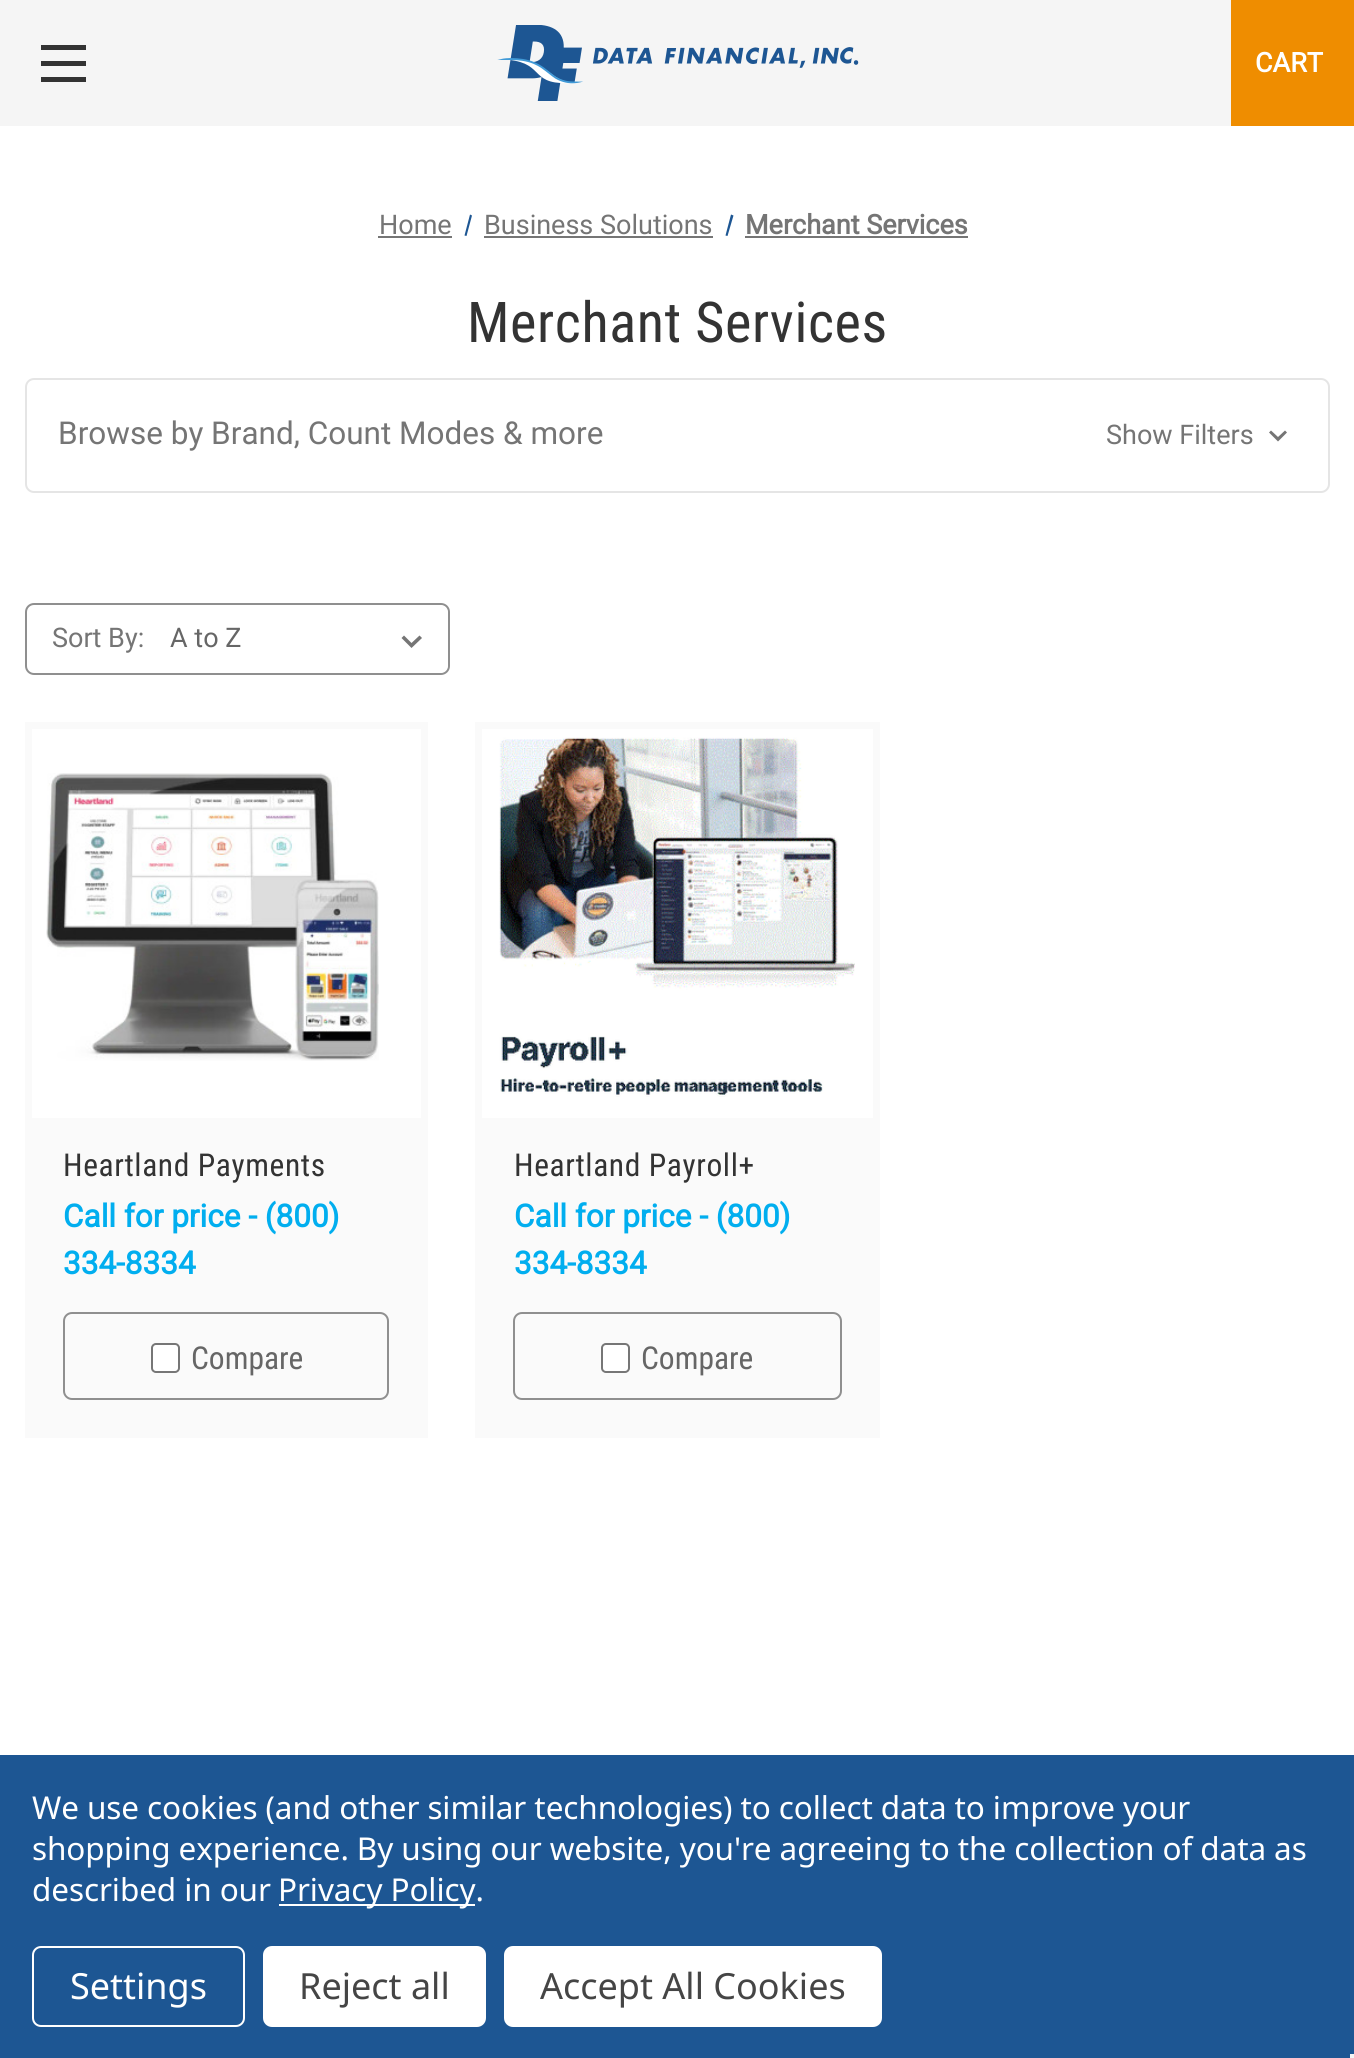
import math
import cairo



def draw_spaced(context, x, y, s, letter, word):
    context.move_to(x, y)
    for ch in s:
        context.show_text(ch)
        context.rel_move_to(letter + word * (ch == ' '), 0)


def rounded_rect(context, x, y, w, h, r):
    context.new_sub_path()
    for i, (u, v) in enumerate([(x + w - r, y + h - r), (x + r, y + h - r), (x + r, y + r), (x + w - r, y + r)]):
        context.arc(u, v, r, i * math.pi / 2, (i + 1) * math.pi / 2)
    context.close_path()


def draw_image(context, path, x, y, w, h):
    context.save()
    context.set_source_surface(cairo.ImageSurface.create_from_png(path), x, y)
    context.rectangle(x, y, w, h)
    context.fill()
    context.restore()


def draw(context):
    context.set_source_rgb(1, 1, 1)
    context.paint()
    context.set_source_rgb(245 / 255, 245 / 255, 245 / 255)
    context.rectangle(0, 0, 1231, 126)
    context.fill()
    draw_image(context, "images/1.png", 497, 25, 362, 76)
    context.set_source_rgb(51 / 255, 51 / 255, 51 / 255)
    context.rectangle(41, 61, 45, 5)
    context.fill()
    context.rectangle(41, 45, 45, 5)
    context.fill()
    context.rectangle(41, 77, 45, 5)
    context.fill()
    context.set_source_rgb(239 / 255, 141 / 255, 0)
    context.rectangle(1231, 0, 123, 126)
    context.fill()
    context.set_source_rgb(117 / 255, 117 / 255, 117 / 255)
    context.rectangle(378, 236, 74, 2)
    context.fill()
    context.set_source_rgb(29 / 255, 86 / 255, 147 / 255)
    context.new_path()
    context.move_to(470, 214.5)
    context.line_to(472, 215.5)
    context.line_to(466.5, 236)
    context.line_to(464.5, 235.5)
    context.close_path()
    context.fill()
    context.set_source_rgb(117 / 255, 117 / 255, 117 / 255)
    context.rectangle(484, 236, 229, 2)
    context.fill()
    context.set_source_rgb(29 / 255, 86 / 255, 147 / 255)
    context.new_path()
    context.move_to(731, 214.5)
    context.line_to(733.5, 215.5)
    context.line_to(727.5, 236)
    context.line_to(725.5, 235.5)
    context.close_path()
    context.fill()
    context.set_source_rgb(117 / 255, 117 / 255, 117 / 255)
    context.rectangle(745, 236, 223, 2)
    context.fill()
    rounded_rect(context, 26, 379, 1303, 113, 8)
    context.set_source_rgb(229 / 255, 229 / 255, 229 / 255)
    context.stroke()
    context.set_source_rgb(117 / 255, 117 / 255, 117 / 255)
    context.new_path()
    context.move_to(1271, 430.5)
    context.line_to(1278, 437)
    context.line_to(1285, 430.5)
    context.line_to(1287, 432.5)
    context.line_to(1278, 441.5)
    context.line_to(1269, 432.5)
    context.close_path()
    context.fill()
    rounded_rect(context, 26, 604, 423, 70, 8)
    context.set_source_rgb(143 / 255, 143 / 255, 143 / 255)
    context.stroke()
    context.set_source_rgb(1, 1, 1)
    rounded_rect(context, 162, 605, 286, 68, 9)
    context.fill()
    context.set_source_rgb(117 / 255, 117 / 255, 117 / 255)
    context.new_path()
    context.move_to(419.5, 635.5)
    context.line_to(411.5, 643)
    context.line_to(404, 635.5)
    context.line_to(401.5, 638)
    context.line_to(411.5, 648)
    context.line_to(422, 638)
    context.close_path()
    context.fill()
    context.rectangle(28.5, 725.5, 396, 709)
    context.set_source_rgb(250 / 255, 250 / 255, 250 / 255)
    context.set_line_width(7)
    context.stroke()
    draw_image(context, "images/2.png", 46, 773, 333, 288)
    context.rectangle(32, 1118, 389, 313)
    context.fill()
    rounded_rect(context, 64, 1313, 324, 86, 8)
    context.set_source_rgb(143 / 255, 143 / 255, 143 / 255)
    context.set_line_width(2)
    context.stroke()
    context.set_source_rgb(1, 1, 1)
    rounded_rect(context, 152, 1344, 27, 28, 4)
    context.fill_preserve()
    context.set_source_rgb(118 / 255, 118 / 255, 118 / 255)
    context.stroke()
    context.rectangle(478.5, 725.5, 398, 709)
    context.set_source_rgb(250 / 255, 250 / 255, 250 / 255)
    context.set_line_width(7)
    context.stroke()
    draw_image(context, "images/3.png", 499, 737, 356, 360)
    context.rectangle(482, 1118, 391, 313)
    context.fill()
    rounded_rect(context, 514, 1313, 327, 86, 8)
    context.set_source_rgb(143 / 255, 143 / 255, 143 / 255)
    context.set_line_width(2)
    context.stroke()
    context.set_source_rgb(1, 1, 1)
    rounded_rect(context, 602, 1344, 27, 28, 4)
    context.fill_preserve()
    context.set_source_rgb(118 / 255, 118 / 255, 118 / 255)
    context.stroke()
    context.set_source_rgb(29 / 255, 86 / 255, 147 / 255)
    context.rectangle(0, 1755, 1354, 303)
    context.fill()
    context.set_source_rgb(1, 1, 1)
    context.rectangle(279, 1904, 196, 2)
    context.fill()
    rounded_rect(context, 33, 1947, 211, 79, 8)
    context.stroke()
    rounded_rect(context, 263, 1946, 223, 81, 9)
    context.fill()
    rounded_rect(context, 504, 1946, 378, 81, 9)
    context.fill()
    context.set_source_rgb(245 / 255, 245 / 255, 245 / 255)
    context.rectangle(1350, 2054, 4, 4)
    context.fill()
    context.select_font_face("Roboto", cairo.FontSlant.NORMAL, cairo.FontWeight.BOLD)
    context.set_font_size(27)
    context.set_source_rgb(1, 1, 1)
    context.move_to(1255, 72)
    context.show_text("CART")
    context.select_font_face("Roboto")
    context.set_source_rgb(117 / 255, 117 / 255, 117 / 255)
    context.move_to(379, 234)
    context.show_text("Home")
    context.move_to(484, 234)
    context.show_text("Business Solutions")
    context.select_font_face("Roboto", cairo.FontSlant.NORMAL, cairo.FontWeight.BOLD)
    context.move_to(745, 234)
    context.show_text("Merchant Services")
    context.select_font_face("Roboto Condensed")
    context.set_font_size(56.25)
    context.set_source_rgb(51 / 255, 51 / 255, 51 / 255)
    draw_spaced(context, 467, 342, "Merchant Services", 0.6, 0)
    context.select_font_face("Roboto")
    context.set_font_size(31.5)
    context.set_source_rgb(117 / 255, 117 / 255, 117 / 255)
    context.move_to(58, 444)
    context.show_text("Browse by Brand, Count Modes & more")
    context.set_font_size(27)
    context.move_to(1106, 444)
    context.show_text("Show Filters")
    context.move_to(52, 647)
    context.show_text("Sort By:")
    context.set_source_rgb(102 / 255, 102 / 255, 102 / 255)
    context.move_to(170, 647)
    context.show_text("A to Z")
    context.select_font_face("Roboto Condensed")
    context.set_font_size(31.5)
    context.set_source_rgb(51 / 255, 51 / 255, 51 / 255)
    draw_spaced(context, 63, 1176, "Heartland Payments", 0.6, 0)
    context.select_font_face("Roboto", cairo.FontSlant.NORMAL, cairo.FontWeight.BOLD)
    context.set_source_rgb(1 / 255, 174 / 255, 239 / 255)
    context.move_to(63, 1227)
    context.show_text("Call for price - (800)")
    context.move_to(63, 1274)
    context.show_text("334-8334")
    context.select_font_face("Roboto Condensed")
    context.set_source_rgb(102 / 255, 102 / 255, 102 / 255)
    context.move_to(191, 1369)
    context.show_text("Compare")
    context.set_source_rgb(51 / 255, 51 / 255, 51 / 255)
    draw_spaced(context, 514, 1176, "Heartland Payroll+", 0.6, 0)
    context.select_font_face("Roboto", cairo.FontSlant.NORMAL, cairo.FontWeight.BOLD)
    context.set_source_rgb(1 / 255, 174 / 255, 239 / 255)
    context.move_to(514, 1227)
    context.show_text("Call for price - (800)")
    context.move_to(514, 1274)
    context.show_text("334-8334")
    context.select_font_face("Roboto Condensed")
    context.set_source_rgb(102 / 255, 102 / 255, 102 / 255)
    context.move_to(641, 1369)
    context.show_text("Compare")
    context.select_font_face("Noto Sans")
    context.set_source_rgb(1, 1, 1)
    draw_spaced(context, 32, 1819, "We use cookies (and other similar technologies) to collect data to improve your", -0.1, 0)
    draw_spaced(context, 32, 1860, "shopping experience. By using our website, you're agreeing to the collection of data as", -0.1, 0)
    draw_spaced(context, 32, 1901, "described in our", -0.1, 0)
    draw_spaced(context, 278, 1901, "Privacy Policy.", -0.1, 0)
    context.set_font_size(36)
    context.move_to(70, 1999)
    context.show_text("Settings")
    context.set_source_rgb(69 / 255, 69 / 255, 69 / 255)
    context.move_to(299, 1999)
    context.show_text("Reject all")
    context.move_to(540, 1999)
    context.show_text("Accept All Cookies")


surface = cairo.ImageSurface(cairo.Format.RGB24, 1354, 2058)
context = cairo.Context(surface)
options = cairo.FontOptions()
options.set_hint_metrics(cairo.HintMetrics.OFF)
options.set_hint_style(cairo.HintStyle.NONE)
context.set_font_options(options)
context.set_miter_limit(4)
draw(context)
surface.write_to_png("out.png")
